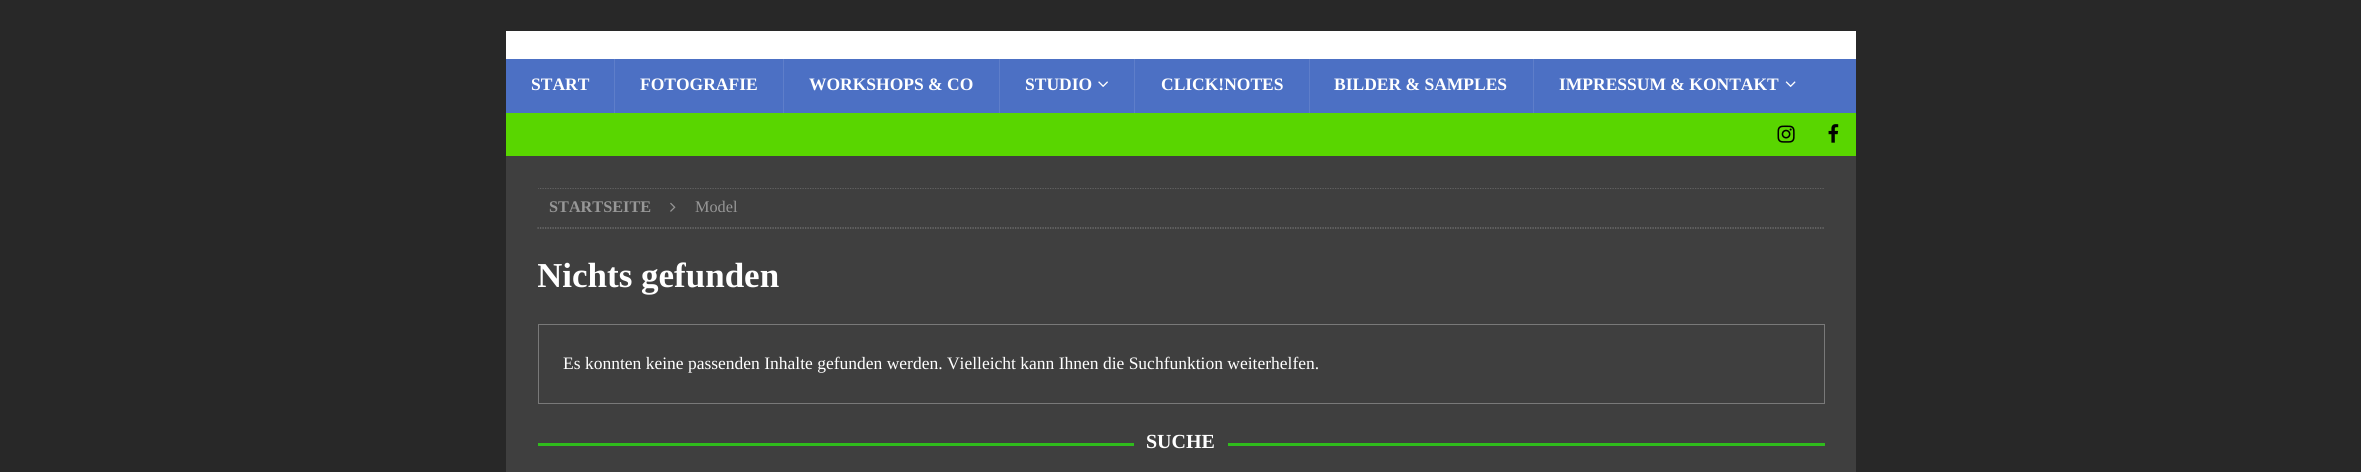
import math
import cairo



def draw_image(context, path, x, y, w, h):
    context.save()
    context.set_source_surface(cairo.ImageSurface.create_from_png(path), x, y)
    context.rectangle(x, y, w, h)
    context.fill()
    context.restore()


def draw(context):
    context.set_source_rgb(40 / 255, 40 / 255, 40 / 255)
    context.paint()
    context.set_source_rgb(1, 1, 1)
    context.rectangle(506, 31, 1350, 28)
    context.fill()
    context.set_source_rgb(76 / 255, 112 / 255, 196 / 255)
    context.rectangle(506, 59, 1350, 54)
    context.fill()
    context.set_source_rgb(94 / 255, 126 / 255, 202 / 255)
    context.rectangle(614, 59, 1, 54)
    context.fill()
    context.rectangle(783, 59, 1, 54)
    context.fill()
    context.rectangle(999, 59, 1, 54)
    context.fill()
    draw_image(context, "images/1.png", 1098, 81, 10, 6)
    context.rectangle(1134, 59, 1, 54)
    context.fill()
    context.rectangle(1309, 59, 1, 54)
    context.fill()
    context.rectangle(1533, 59, 1, 54)
    context.fill()
    draw_image(context, "images/2.png", 1785, 81, 11, 6)
    context.set_source_rgb(89 / 255, 214 / 255, 0)
    context.rectangle(506, 113, 1350, 43)
    context.fill()
    draw_image(context, "images/3.png", 1777, 125, 18, 18)
    draw_image(context, "images/4.png", 1828, 124, 11, 19)
    context.set_source_rgb(63 / 255, 63 / 255, 63 / 255)
    context.rectangle(506, 156, 1350, 316)
    context.fill()
    context.save()
    context.rectangle(538, 188, 1287, 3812)
    context.clip()
    context.new_path()
    context.move_to(537.5, 188)
    context.line_to(1825, 188)
    context.set_source_rgb(121 / 255, 121 / 255, 121 / 255)
    context.set_line_width(1.2)
    context.set_dash([1.25, 1.25])
    context.stroke()
    context.restore()
    context.new_path()
    context.move_to(537.5, 228)
    context.line_to(1825, 228)
    context.set_source_rgb(121 / 255, 121 / 255, 121 / 255)
    context.set_line_width(1.2)
    context.set_dash([1.25, 1.25])
    context.stroke()
    draw_image(context, "images/5.png", 670, 202, 6, 10)
    context.rectangle(538.5, 324.5, 1286, 79)
    context.set_line_width(1)
    context.set_dash([])
    context.stroke()
    context.set_source_rgb(47 / 255, 188 / 255, 28 / 255)
    context.rectangle(538, 443, 1287, 3)
    context.fill()
    context.set_source_rgb(63 / 255, 63 / 255, 63 / 255)
    context.rectangle(1134, 443, 94, 3)
    context.fill()
    context.select_font_face("Liberation Serif", cairo.FontSlant.NORMAL, cairo.FontWeight.BOLD)
    context.set_font_size(17.5)
    context.set_source_rgb(1, 1, 1)
    context.move_to(531, 90)
    context.show_text("START")
    context.move_to(640, 90)
    context.show_text("FOTOGRAFIE")
    context.move_to(809, 90)
    context.show_text("WORKSHOPS & CO")
    context.move_to(1025, 90)
    context.show_text("STUDIO")
    context.move_to(1161, 90)
    context.show_text("CLICK!NOTES")
    context.move_to(1334, 90)
    context.show_text("BILDER & SAMPLES")
    context.move_to(1559, 90)
    context.show_text("IMPRESSUM & KONTAKT")
    context.set_font_size(16.25)
    context.set_source_rgb(151 / 255, 151 / 255, 151 / 255)
    context.move_to(549, 212)
    context.show_text("STARTSEITE")
    context.select_font_face("Liberation Serif")
    context.move_to(695, 212)
    context.show_text("Model")
    context.save()
    context.rectangle(538, 188, 1287, 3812)
    context.clip()
    context.select_font_face("Liberation Serif", cairo.FontSlant.NORMAL, cairo.FontWeight.BOLD)
    context.set_font_size(35)
    context.set_source_rgb(1, 1, 1)
    context.move_to(537, 287)
    context.show_text("Nichts gefunden")
    context.restore()
    context.set_font_size(17.5)
    context.set_source_rgb(1, 1, 1)
    context.move_to(563, 369)
    context.show_text("Es konnten keine passenden Inhalte gefunden werden. Vielleicht kann Ihnen die Suchfunktion weiterhelfen.")
    context.select_font_face("Liberation Serif", cairo.FontSlant.NORMAL, cairo.FontWeight.BOLD)
    context.set_font_size(20)
    context.move_to(1146, 448)
    context.show_text("SUCHE")


surface = cairo.ImageSurface(cairo.Format.RGB24, 2361, 472)
context = cairo.Context(surface)
options = cairo.FontOptions()
options.set_hint_metrics(cairo.HintMetrics.OFF)
options.set_hint_style(cairo.HintStyle.NONE)
context.set_font_options(options)
context.set_miter_limit(4)
draw(context)
surface.write_to_png("out.png")
